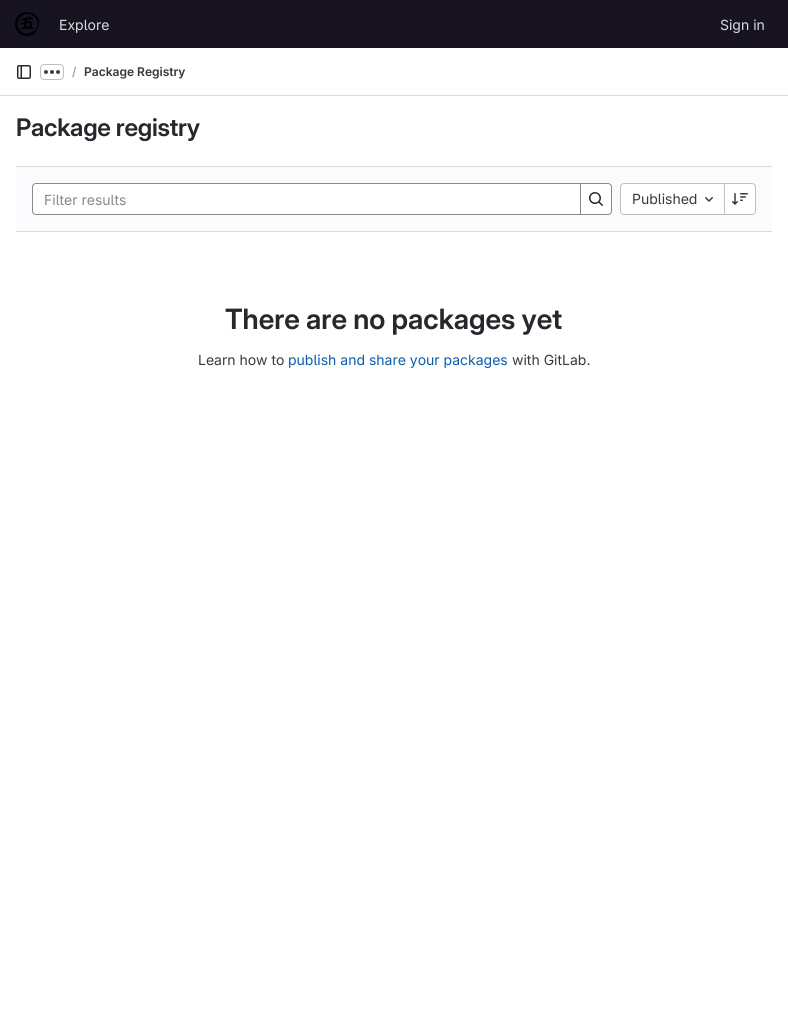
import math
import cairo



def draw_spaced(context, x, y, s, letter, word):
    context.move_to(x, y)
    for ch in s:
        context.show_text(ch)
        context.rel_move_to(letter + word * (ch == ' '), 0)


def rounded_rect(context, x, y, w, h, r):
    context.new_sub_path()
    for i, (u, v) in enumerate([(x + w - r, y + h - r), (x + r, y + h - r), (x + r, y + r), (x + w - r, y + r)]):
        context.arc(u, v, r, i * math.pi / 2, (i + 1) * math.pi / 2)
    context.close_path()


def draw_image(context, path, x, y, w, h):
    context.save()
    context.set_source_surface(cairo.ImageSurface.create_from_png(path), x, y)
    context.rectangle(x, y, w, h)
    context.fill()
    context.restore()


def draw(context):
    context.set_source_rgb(1, 1, 1)
    context.paint()
    context.set_source_rgb(23 / 255, 19 / 255, 33 / 255)
    context.rectangle(0, 0, 788, 48)
    context.fill()
    draw_image(context, "images/1.png", 15, 12, 24, 24)
    context.set_source_rgb(220 / 255, 220 / 255, 222 / 255)
    context.rectangle(0, 95, 788, 1)
    context.fill()
    draw_image(context, "images/2.png", 17, 65, 14, 14)
    rounded_rect(context, 40.5, 64.5, 23, 15, 3.5)
    context.set_source_rgb(191 / 255, 191 / 255, 195 / 255)
    context.set_line_width(1)
    context.stroke()
    draw_image(context, "images/3.png", 44, 70, 16, 4)
    context.set_source_rgb(251 / 255, 250 / 255, 253 / 255)
    context.rectangle(16, 167, 756, 64)
    context.fill()
    context.set_source_rgb(220 / 255, 220 / 255, 222 / 255)
    context.rectangle(16, 166, 756, 1)
    context.fill()
    context.rectangle(16, 231, 756, 1)
    context.fill()
    context.set_source_rgb(1, 1, 1)
    context.new_path()
    context.move_to(36, 183.5)
    context.line_to(580.5, 183.5)
    context.line_to(580.5, 214.5)
    context.line_to(36, 214.5)
    context.curve_to(34, 214.5, 32.5, 213, 32.5, 211)
    context.line_to(32.5, 187)
    context.curve_to(32.5, 185, 34, 183.5, 36, 183.5)
    context.close_path()
    context.fill_preserve()
    context.set_source_rgb(137 / 255, 136 / 255, 141 / 255)
    context.stroke()
    context.set_source_rgb(1, 1, 1)
    context.new_path()
    context.move_to(580.5, 183.5)
    context.line_to(608, 183.5)
    context.curve_to(610, 183.5, 611.5, 185, 611.5, 187)
    context.line_to(611.5, 211)
    context.curve_to(611.5, 213, 610, 214.5, 608, 214.5)
    context.line_to(580.5, 214.5)
    context.close_path()
    context.fill_preserve()
    context.set_source_rgb(137 / 255, 136 / 255, 141 / 255)
    context.stroke()
    draw_image(context, "images/4.png", 589, 192, 14, 14)
    context.set_source_rgb(1, 1, 1)
    context.new_path()
    context.move_to(624, 183.5)
    context.line_to(724.5, 183.5)
    context.line_to(724.5, 214.5)
    context.line_to(624, 214.5)
    context.curve_to(622, 214.5, 620.5, 213, 620.5, 211)
    context.line_to(620.5, 187)
    context.curve_to(620.5, 185, 622, 183.5, 624, 183.5)
    context.close_path()
    context.fill_preserve()
    context.set_source_rgb(191 / 255, 191 / 255, 195 / 255)
    context.stroke()
    draw_image(context, "images/5.png", 705, 197, 8, 5)
    context.set_source_rgb(1, 1, 1)
    context.new_path()
    context.move_to(724.5, 183.5)
    context.line_to(752, 183.5)
    context.curve_to(754, 183.5, 755.5, 185, 755.5, 187)
    context.line_to(755.5, 211)
    context.curve_to(755.5, 213, 754, 214.5, 752, 214.5)
    context.line_to(724.5, 214.5)
    context.close_path()
    context.fill_preserve()
    context.set_source_rgb(191 / 255, 191 / 255, 195 / 255)
    context.stroke()
    draw_image(context, "images/6.png", 732, 193, 16, 12)
    context.select_font_face("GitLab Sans")
    context.set_font_size(14)
    context.set_source_rgb(220 / 255, 220 / 255, 222 / 255)
    context.move_to(59, 30)
    context.show_text("Explore")
    context.move_to(720, 30)
    context.show_text("Sign in")
    context.set_font_size(12)
    context.set_source_rgb(137 / 255, 136 / 255, 141 / 255)
    context.move_to(72, 76)
    context.show_text("/")
    context.select_font_face("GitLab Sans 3 SemiBold")
    context.set_source_rgb(58 / 255, 56 / 255, 63 / 255)
    context.move_to(84, 76)
    context.show_text("Package Registry")
    context.select_font_face("GitLab Sans SemiBold")
    context.set_font_size(24.25)
    context.set_source_rgb(40 / 255, 39 / 255, 45 / 255)
    draw_spaced(context, 16, 136, "Package registry", -0.25, 0)
    context.select_font_face("GitLab Sans")
    context.set_font_size(14)
    context.set_source_rgb(137 / 255, 136 / 255, 141 / 255)
    context.move_to(44, 205)
    context.show_text("Filter results")
    context.set_source_rgb(58 / 255, 56 / 255, 63 / 255)
    context.move_to(632, 204)
    context.show_text("Published")
    context.select_font_face("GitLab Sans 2 SemiBold")
    context.set_font_size(28)
    context.set_source_rgb(40 / 255, 39 / 255, 45 / 255)
    context.move_to(225, 329)
    context.show_text("There are no packages yet")
    context.select_font_face("GitLab Sans")
    context.set_font_size(14)
    context.set_source_rgb(58 / 255, 56 / 255, 63 / 255)
    context.move_to(198, 365)
    context.show_text("Learn how to")
    context.set_source_rgb(11 / 255, 92 / 255, 173 / 255)
    context.move_to(288, 365)
    context.show_text("publish and share your packages")
    context.set_source_rgb(58 / 255, 56 / 255, 63 / 255)
    context.move_to(512, 365)
    context.show_text("with GitLab.")


surface = cairo.ImageSurface(cairo.Format.RGB24, 788, 1013)
context = cairo.Context(surface)
options = cairo.FontOptions()
options.set_hint_metrics(cairo.HintMetrics.OFF)
options.set_hint_style(cairo.HintStyle.NONE)
context.set_font_options(options)
context.set_miter_limit(4)
draw(context)
surface.write_to_png("out.png")
